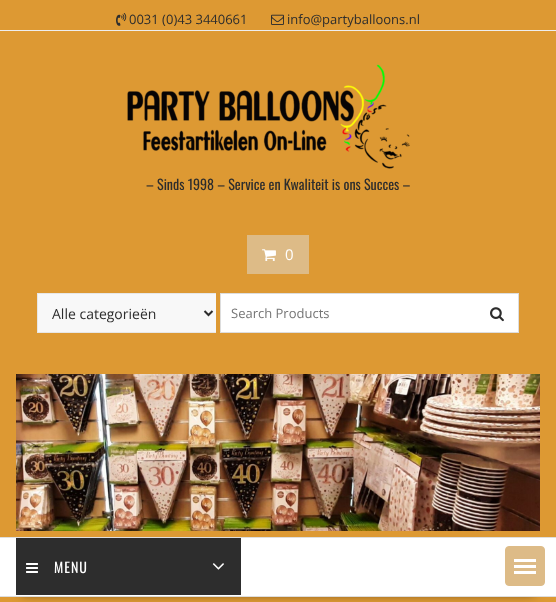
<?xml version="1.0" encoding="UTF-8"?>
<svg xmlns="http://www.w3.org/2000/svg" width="556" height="602">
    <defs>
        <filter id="blur1" x="-50%" y="-200%" width="200%" height="500%"><feGaussianBlur stdDeviation="5.5"/></filter>
    </defs>
    <rect width="100%" height="100%" fill="#DD9933"/>
    <rect x="0" y="30" width="556" height="1" fill="#EEEEEE"/>
    <image x="116" y="13" width="11" height="13" href="img_01.png"/>
    <text x="129" y="24" font-family="Open Sans" font-size="13" fill="#2D2D2D">0031 (0)43 3440661</text>
    <image x="271" y="14" width="13" height="11" href="img_02.png"/>
    <text x="287" y="24" font-family="Open Sans" font-size="13" fill="#2D2D2D">info@partyballoons.nl</text>
    <image x="127" y="64" width="283" height="105" href="img_03.png"/>
    <text x="146" y="190" font-family="Oswald" font-size="14" fill="#2D2D2D">– Sinds 1998 – Service en Kwaliteit is ons Succes –</text>
    <rect x="247" y="235" width="62" height="39" fill="#DDBB87"/>
    <image x="262" y="249" width="14" height="12" href="img_04.png"/>
    <text x="285" y="260" font-family="Open Sans" font-size="15" fill="#FFFFFF">0</text>
    <rect x="38" y="294" width="178" height="38" fill="#F8F8F8"/>
    <rect x="37" y="293" width="179" height="1" fill="#E7E7E7"/>
    <rect x="37" y="332" width="179" height="1" fill="#E7E7E7"/>
    <rect x="37" y="293" width="1" height="40" fill="#E7E7E7"/>
    <path d="M 204.5 311 L 208.5 315 L 212.5 311" fill="none" stroke="#2D2D2D" stroke-width="2"/>
    <text x="52" y="319" font-family="Open Sans" font-size="14" fill="#2D2D2D">Alle categorieën</text>
    <rect x="220.5" y="293.5" width="298" height="39" fill="#FFFFFF" stroke="#DDDDDD"/>
    <text x="231" y="318" font-family="Open Sans" font-size="13" fill="#757575">Search Products</text>
    <image x="490" y="307" width="14" height="15" href="img_05.png"/>
    <image x="16" y="374" width="524" height="157" href="img_06.png"/>
    <rect x="21" y="575" width="514" height="18" fill="#000000" fill-opacity="0.75" filter="url(#blur1)"/>
    <rect x="0" y="538" width="556" height="58" fill="#FFFFFF"/>
    <rect x="0" y="537" width="556" height="1" fill="#DEDEDE"/>
    <rect x="0" y="596" width="556" height="1" fill="#DEDEDE"/>
    <rect x="16" y="538" width="225" height="57" fill="#2D2D2D"/>
    <image x="26" y="563" width="12" height="10" href="img_07.png"/>
    <text x="54" y="573" font-family="Oswald" font-size="14" letter-spacing="1" fill="#FFFFFF">MENU</text>
    <image x="212" y="563" width="12" height="7" href="img_08.png"/>
    <rect x="505.5" y="546.5" width="39" height="39" rx="3.5" fill="#DDBB87" stroke="#DDBB87"/>
    <rect x="514" y="571" width="22" height="3" fill="#FFFFFF"/>
    <rect x="514" y="565" width="22" height="3" fill="#FFFFFF"/>
    <rect x="514" y="559" width="22" height="3" fill="#FFFFFF"/>
</svg>
